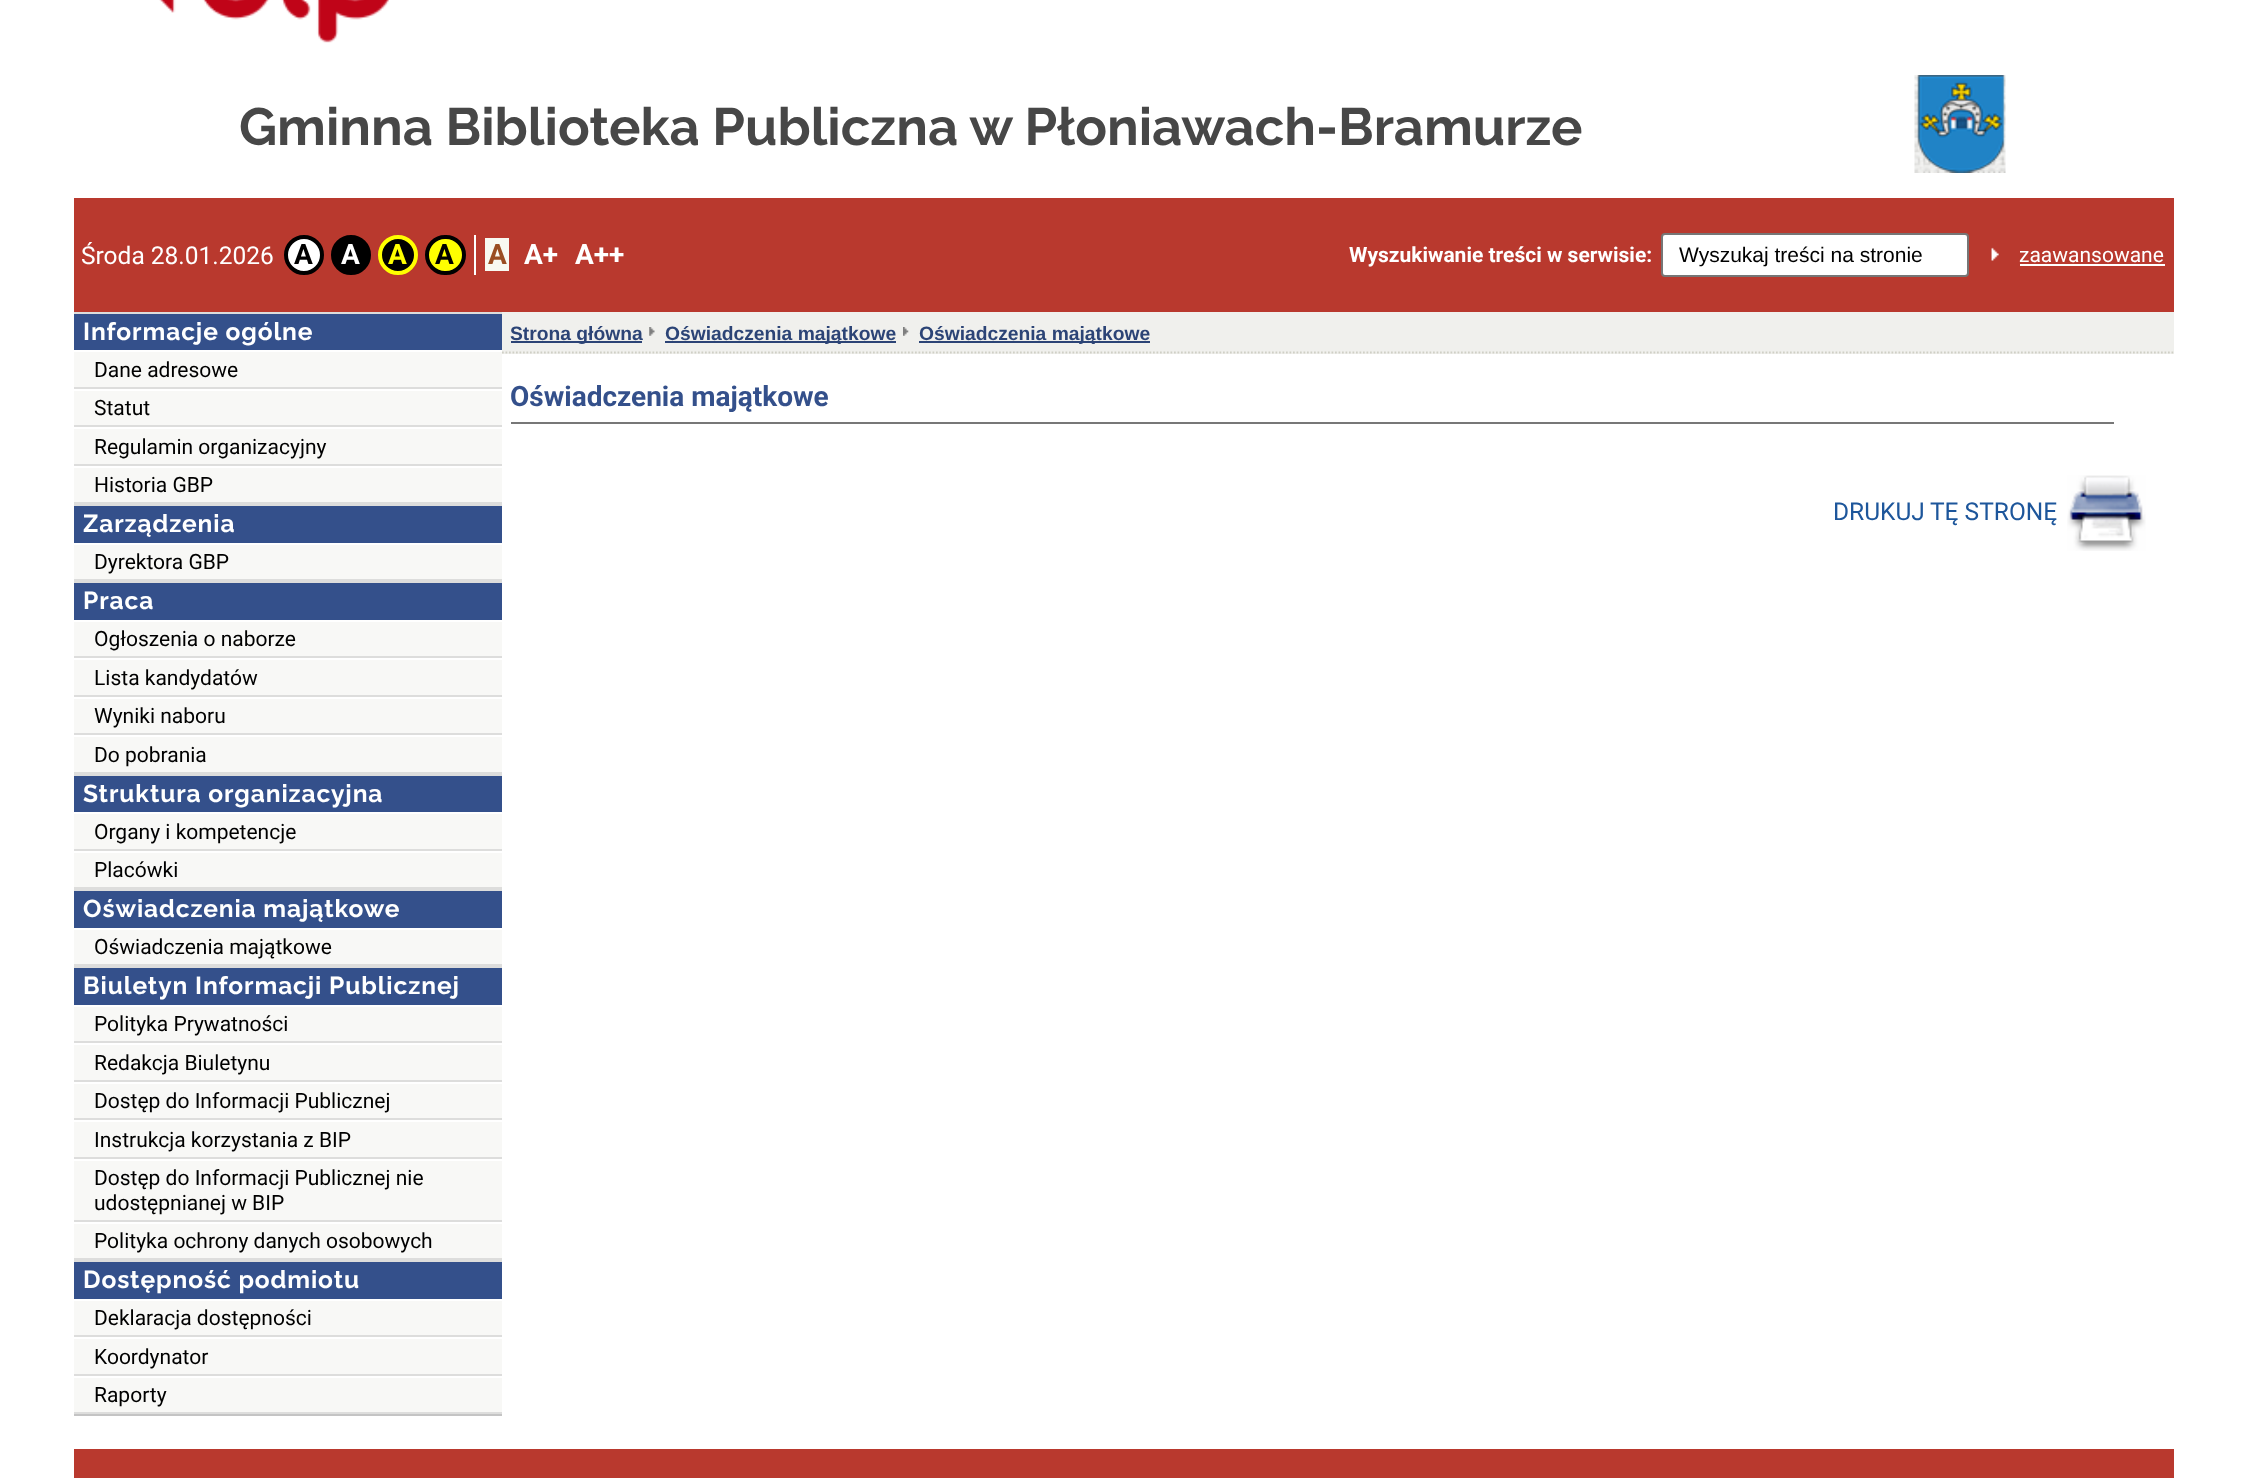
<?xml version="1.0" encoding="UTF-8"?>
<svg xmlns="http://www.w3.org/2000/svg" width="2244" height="1478">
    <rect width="100%" height="100%" fill="#FFFFFF"/>
    <image x="159" y="0" width="230" height="43" href="img_01.png"/>
    <text x="239" y="145" font-family="Raleway" font-size="52.5" font-weight="700" fill="#474747">Gminna Biblioteka Publiczna w Płoniawach-Bramurze</text>
    <image x="1914" y="75" width="92" height="98" href="img_02.png"/>
    <rect x="74" y="198" width="2100" height="114" fill="#B9392E"/>
    <text x="81" y="264" font-family="Roboto" font-size="24.5" fill="#FFFFFF">Środa 28.01.2026</text>
    <rect x="474" y="235" width="2" height="40" fill="#FFFFFF"/>
    <circle cx="304" cy="255" r="18" fill="#FFFFFF" stroke="#000000" stroke-width="4"/>
    <text x="294" y="264" font-family="Roboto" font-size="28" font-weight="700" fill="#000000">A</text>
    <circle cx="351" cy="255" r="18" fill="#000000" stroke="#000000" stroke-width="4"/>
    <text x="341" y="264" font-family="Roboto" font-size="28" font-weight="700" fill="#FFFFFF">A</text>
    <circle cx="398" cy="255" r="18" fill="#000000" stroke="#FFFF00" stroke-width="4"/>
    <text x="388" y="264" font-family="Roboto" font-size="28" font-weight="700" fill="#FFFF00">A</text>
    <rect x="427" y="237" width="37" height="36" rx="18" fill="#FFFF00" stroke="#000000" stroke-width="4"/>
    <text x="435" y="264" font-family="Roboto" font-size="28" font-weight="700" fill="#000000">A</text>
    <rect x="485" y="238" width="24" height="33" fill="#F8F9F1"/>
    <text x="488" y="264" font-family="Roboto" font-size="28" font-weight="700" fill="#9A4D22">A</text>
    <text x="524" y="264" font-family="Roboto" font-size="28" font-weight="700" fill="#FFFFFF">A+</text>
    <text x="575" y="264" font-family="Roboto" font-size="28" font-weight="700" fill="#FFFFFF">A++</text>
    <text x="1349" y="262" font-family="Roboto" font-size="21" font-weight="700" fill="#FFFFFF">Wyszukiwanie treści w serwisie:</text>
    <rect x="1662" y="234" width="306" height="42" rx="3" fill="#FFFFFF" stroke="#767676" stroke-width="2"/>
    <text x="1679" y="262" font-family="Liberation Sans" font-size="21" fill="#000000">Wyszukaj treści na stronie</text>
    <image x="1991" y="247" width="8" height="14" href="img_03.png"/>
    <text x="2019" y="262" font-family="Roboto" font-size="21" fill="#FFFFFF">zaawansowane</text>
    <rect x="2020" y="264" width="145" height="2" fill="#FFFFFF"/>
    <rect x="74" y="352" width="428" height="1060" fill="#F8F8F6"/>
    <rect x="74" y="1414" width="428" height="2" fill="#C4C4C4"/>
    <rect x="74" y="314" width="428" height="36" fill="#34508B"/>
    <rect x="74" y="312" width="428" height="2" fill="#DDDDDC"/>
    <text x="83" y="340" font-family="Raleway" font-size="24.5" font-weight="700" letter-spacing="0.9" fill="#FFFFFF">Informacje ogólne</text>
    <rect x="74" y="387" width="428" height="2" fill="#DDDDDC"/>
    <text x="94" y="377" font-family="Roboto" font-size="21" fill="#000000">Dane adresowe</text>
    <rect x="74" y="389" width="428" height="2" fill="#FFFFFF"/>
    <rect x="74" y="425" width="428" height="2" fill="#DDDDDC"/>
    <text x="94" y="415" font-family="Roboto" font-size="21" fill="#000000">Statut</text>
    <rect x="74" y="427" width="428" height="2" fill="#FFFFFF"/>
    <rect x="74" y="464" width="428" height="2" fill="#DDDDDC"/>
    <text x="94" y="454" font-family="Roboto" font-size="21" fill="#000000">Regulamin organizacyjny</text>
    <rect x="74" y="466" width="428" height="2" fill="#FFFFFF"/>
    <rect x="74" y="502" width="428" height="4" fill="#DDDDDC"/>
    <text x="94" y="492" font-family="Roboto" font-size="21" fill="#000000">Historia GBP</text>
    <rect x="74" y="506" width="428" height="37" fill="#34508B"/>
    <text x="83" y="532" font-family="Raleway" font-size="24.5" font-weight="700" letter-spacing="0.9" fill="#FFFFFF">Zarządzenia</text>
    <rect x="74" y="543" width="428" height="2" fill="#FFFFFF"/>
    <rect x="74" y="579" width="428" height="4" fill="#DDDDDC"/>
    <text x="94" y="569" font-family="Roboto" font-size="21" fill="#000000">Dyrektora GBP</text>
    <rect x="74" y="583" width="428" height="37" fill="#34508B"/>
    <text x="83" y="609" font-family="Raleway" font-size="24.5" font-weight="700" letter-spacing="0.9" fill="#FFFFFF">Praca</text>
    <rect x="74" y="620" width="428" height="2" fill="#FFFFFF"/>
    <rect x="74" y="656" width="428" height="2" fill="#DDDDDC"/>
    <text x="94" y="646" font-family="Roboto" font-size="21" fill="#000000">Ogłoszenia o naborze</text>
    <rect x="74" y="658" width="428" height="2" fill="#FFFFFF"/>
    <rect x="74" y="695" width="428" height="2" fill="#DDDDDC"/>
    <text x="94" y="685" font-family="Roboto" font-size="21" fill="#000000">Lista kandydatów</text>
    <rect x="74" y="697" width="428" height="2" fill="#FFFFFF"/>
    <rect x="74" y="733" width="428" height="2" fill="#DDDDDC"/>
    <text x="94" y="723" font-family="Roboto" font-size="21" fill="#000000">Wyniki naboru</text>
    <rect x="74" y="735" width="428" height="2" fill="#FFFFFF"/>
    <rect x="74" y="772" width="428" height="4" fill="#DDDDDC"/>
    <text x="94" y="762" font-family="Roboto" font-size="21" fill="#000000">Do pobrania</text>
    <rect x="74" y="776" width="428" height="36" fill="#34508B"/>
    <text x="83" y="802" font-family="Raleway" font-size="24.5" font-weight="700" letter-spacing="0.9" fill="#FFFFFF">Struktura organizacyjna</text>
    <rect x="74" y="812" width="428" height="2" fill="#FFFFFF"/>
    <rect x="74" y="849" width="428" height="2" fill="#DDDDDC"/>
    <text x="94" y="839" font-family="Roboto" font-size="21" fill="#000000">Organy i kompetencje</text>
    <rect x="74" y="851" width="428" height="2" fill="#FFFFFF"/>
    <rect x="74" y="887" width="428" height="4" fill="#DDDDDC"/>
    <text x="94" y="877" font-family="Roboto" font-size="21" fill="#000000">Placówki</text>
    <rect x="74" y="891" width="428" height="37" fill="#34508B"/>
    <text x="83" y="917" font-family="Raleway" font-size="24.5" font-weight="700" letter-spacing="0.9" fill="#FFFFFF">Oświadczenia majątkowe</text>
    <rect x="74" y="928" width="428" height="2" fill="#FFFFFF"/>
    <rect x="74" y="964" width="428" height="4" fill="#DDDDDC"/>
    <text x="94" y="954" font-family="Roboto" font-size="21" fill="#000000">Oświadczenia majątkowe</text>
    <rect x="74" y="968" width="428" height="37" fill="#34508B"/>
    <text x="83" y="994" font-family="Raleway" font-size="24.5" font-weight="700" letter-spacing="0.9" fill="#FFFFFF">Biuletyn Informacji Publicznej</text>
    <rect x="74" y="1005" width="428" height="2" fill="#FFFFFF"/>
    <rect x="74" y="1041" width="428" height="2" fill="#DDDDDC"/>
    <text x="94" y="1031" font-family="Roboto" font-size="21" fill="#000000">Polityka Prywatności</text>
    <rect x="74" y="1043" width="428" height="2" fill="#FFFFFF"/>
    <rect x="74" y="1080" width="428" height="2" fill="#DDDDDC"/>
    <text x="94" y="1070" font-family="Roboto" font-size="21" fill="#000000">Redakcja Biuletynu</text>
    <rect x="74" y="1082" width="428" height="2" fill="#FFFFFF"/>
    <rect x="74" y="1118" width="428" height="2" fill="#DDDDDC"/>
    <text x="94" y="1108" font-family="Roboto" font-size="21" fill="#000000">Dostęp do Informacji Publicznej</text>
    <rect x="74" y="1120" width="428" height="2" fill="#FFFFFF"/>
    <rect x="74" y="1157" width="428" height="2" fill="#DDDDDC"/>
    <text x="94" y="1147" font-family="Roboto" font-size="21" fill="#000000">Instrukcja korzystania z BIP</text>
    <rect x="74" y="1159" width="428" height="2" fill="#FFFFFF"/>
    <rect x="74" y="1220" width="428" height="2" fill="#DDDDDC"/>
    <text font-family="Roboto" font-size="21" fill="#000000">
        <tspan x="94" y="1185">Dostęp do Informacji Publicznej nie</tspan>
        <tspan x="94" y="1210">udostępnianej w BIP</tspan>
    </text>
    <rect x="74" y="1222" width="428" height="2" fill="#FFFFFF"/>
    <rect x="74" y="1258" width="428" height="4" fill="#DDDDDC"/>
    <text x="94" y="1248" font-family="Roboto" font-size="21" fill="#000000">Polityka ochrony danych osobowych</text>
    <rect x="74" y="1262" width="428" height="37" fill="#34508B"/>
    <text x="83" y="1288" font-family="Raleway" font-size="24.5" font-weight="700" letter-spacing="0.9" fill="#FFFFFF">Dostępność podmiotu</text>
    <rect x="74" y="1299" width="428" height="2" fill="#FFFFFF"/>
    <rect x="74" y="1335" width="428" height="2" fill="#DDDDDC"/>
    <text x="94" y="1325" font-family="Roboto" font-size="21" fill="#000000">Deklaracja dostępności</text>
    <rect x="74" y="1337" width="428" height="2" fill="#FFFFFF"/>
    <rect x="74" y="1374" width="428" height="2" fill="#DDDDDC"/>
    <text x="94" y="1364" font-family="Roboto" font-size="21" fill="#000000">Koordynator</text>
    <rect x="74" y="1376" width="428" height="2" fill="#FFFFFF"/>
    <rect x="74" y="1412" width="428" height="2" fill="#DDDDDC"/>
    <text x="94" y="1402" font-family="Roboto" font-size="21" fill="#000000">Raporty</text>
    <rect x="502" y="312" width="1672" height="42" fill="#F0F0ED"/>
    <path d="M 502 352.5 H 2173.5" fill="none" stroke="#CFCFC6" stroke-width="1.8" stroke-dasharray="1.75 1.75"/>
    <rect x="511" y="341" width="131" height="2" fill="#2C4476"/>
    <text x="510" y="340" font-family="Liberation Sans" font-size="19.25" font-weight="700" fill="#2C4476">Strona główna</text>
    <image x="649" y="327" width="6" height="9" href="img_04.png"/>
    <rect x="665" y="341" width="231" height="2" fill="#2C4476"/>
    <text x="665" y="340" font-family="Liberation Sans" font-size="19.25" font-weight="700" fill="#2C4476">Oświadczenia majątkowe</text>
    <image x="903" y="327" width="6" height="9" href="img_05.png"/>
    <rect x="919" y="341" width="231" height="2" fill="#2C4476"/>
    <text x="919" y="340" font-family="Liberation Sans" font-size="19.25" font-weight="700" fill="#2C4476">Oświadczenia majątkowe</text>
    <rect x="511" y="422" width="1603" height="2" fill="#777777"/>
    <text x="510" y="406" font-family="Roboto" font-size="28" font-weight="700" fill="#34508B">Oświadczenia majątkowe</text>
    <text x="1833" y="520" font-family="Roboto" font-size="24.5" fill="#1D569B">DRUKUJ</text>
    <text x="1930" y="520" font-family="Roboto" font-size="24.5" fill="#1D569B">TĘ STRONĘ</text>
    <image x="2067" y="475" width="79" height="76" href="img_06.png"/>
    <rect x="74" y="1449" width="2100" height="29" fill="#B9392E"/>
</svg>
